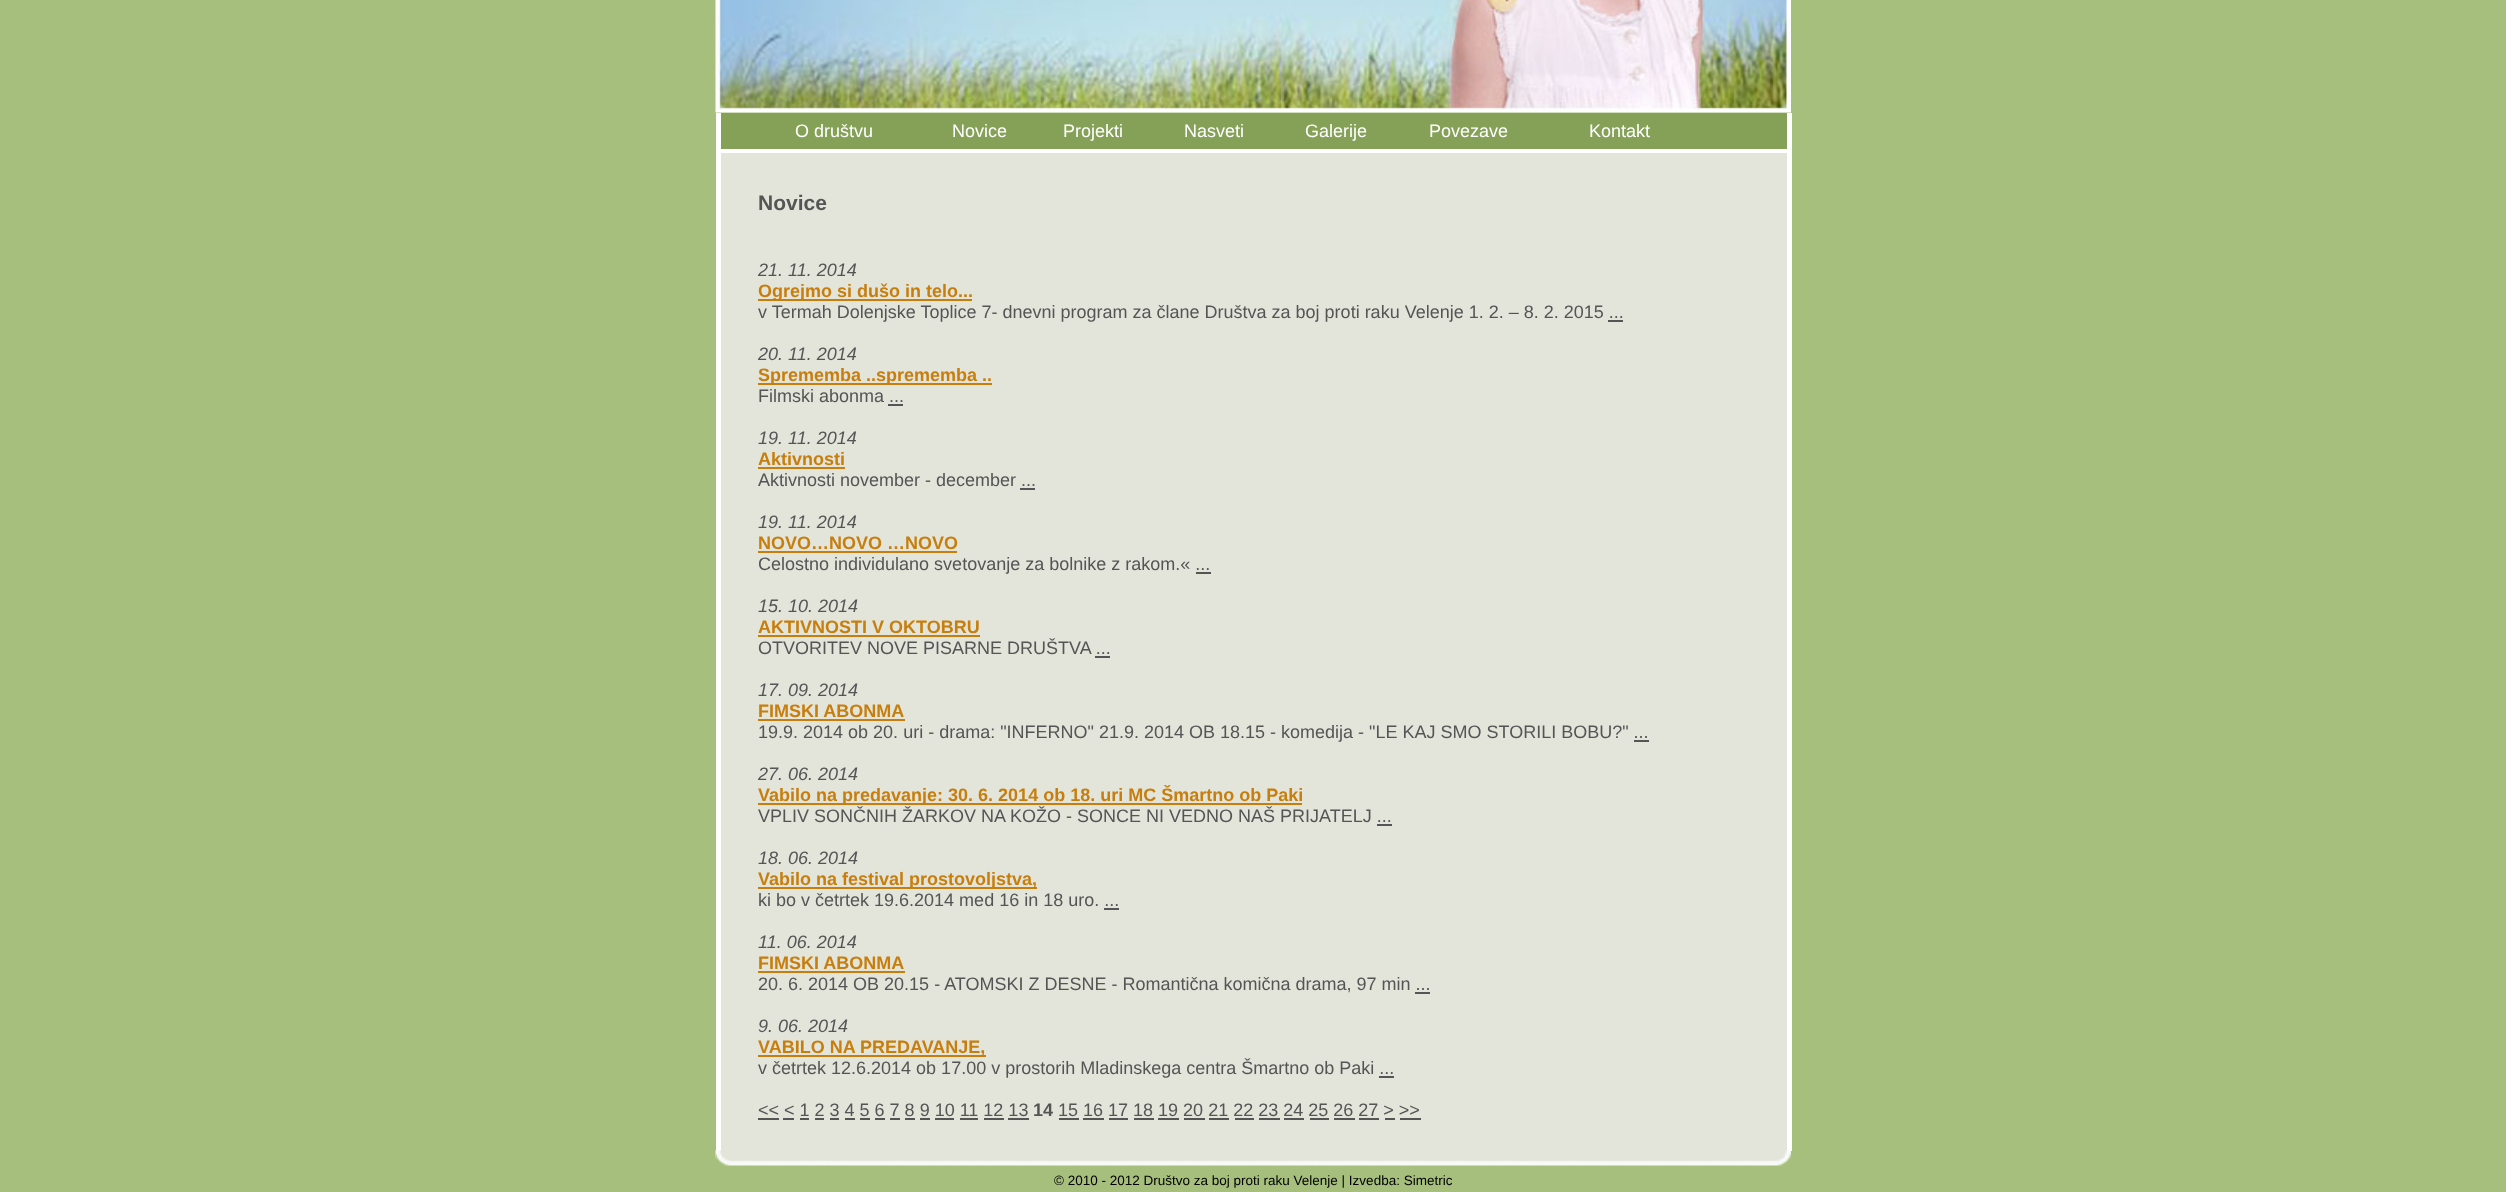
<?xml version="1.0" encoding="UTF-8"?>
<svg xmlns="http://www.w3.org/2000/svg" width="2506" height="1192">
    <rect width="100%" height="100%" fill="#A6BF7D"/>
    <image x="715" y="0" width="1076" height="113" href="img_01.png"/>
    <rect x="721" y="113" width="1066" height="36" fill="#85A157"/>
    <rect x="1787" y="113" width="5" height="1038" fill="#FFFFFF"/>
    <rect x="716" y="149" width="1075" height="4" fill="#FFFFFF"/>
    <rect x="716" y="113" width="5" height="1038" fill="#FFFFFF"/>
    <text x="795" y="137" font-family="Liberation Sans" font-size="18" fill="#FFFFFF">O društvu</text>
    <text x="952" y="137" font-family="Liberation Sans" font-size="18" fill="#FFFFFF">Novice</text>
    <text x="1063" y="137" font-family="Liberation Sans" font-size="18" fill="#FFFFFF">Projekti</text>
    <text x="1184" y="137" font-family="Liberation Sans" font-size="18" fill="#FFFFFF">Nasveti</text>
    <text x="1305" y="137" font-family="Liberation Sans" font-size="18" fill="#FFFFFF">Galerije</text>
    <text x="1429" y="137" font-family="Liberation Sans" font-size="18" fill="#FFFFFF">Povezave</text>
    <text x="1589" y="137" font-family="Liberation Sans" font-size="18" fill="#FFFFFF">Kontakt</text>
    <rect x="721" y="153" width="1066" height="998" fill="#E3E5DB"/>
    <text x="758" y="210" font-family="Liberation Sans" font-size="21" font-weight="700" fill="#555555">Novice</text>
    <text x="758" y="276" font-family="Liberation Sans" font-size="18" font-style="italic" fill="#555555">21. 11. 2014</text>
    <rect x="758" y="299" width="214" height="2" fill="#C77E0C"/>
    <text x="758" y="297" font-family="Liberation Sans" font-size="18" font-weight="700" fill="#C77E0C">Ogrejmo si dušo in telo...</text>
    <text x="758" y="318" font-family="Liberation Sans" font-size="18" fill="#555555">v Termah Dolenjske Toplice 7- dnevni program za člane Društva za boj proti raku Velenje 1. 2. – 8. 2. 2015 ...</text>
    <rect x="1608" y="320" width="15" height="2" fill="#555555"/>
    <text x="758" y="360" font-family="Liberation Sans" font-size="18" font-style="italic" fill="#555555">20. 11. 2014</text>
    <rect x="758" y="383" width="234" height="2" fill="#C77E0C"/>
    <text x="758" y="381" font-family="Liberation Sans" font-size="18" font-weight="700" fill="#C77E0C">Sprememba ..sprememba ..</text>
    <text x="758" y="402" font-family="Liberation Sans" font-size="18" fill="#555555">Filmski abonma ...</text>
    <rect x="888" y="404" width="15" height="2" fill="#555555"/>
    <text x="758" y="444" font-family="Liberation Sans" font-size="18" font-style="italic" fill="#555555">19. 11. 2014</text>
    <text x="758" y="465" font-family="Liberation Sans" font-size="18" font-weight="700" fill="#C77E0C">Aktivnosti</text>
    <rect x="758" y="467" width="87" height="2" fill="#C77E0C"/>
    <text x="758" y="486" font-family="Liberation Sans" font-size="18" fill="#555555">Aktivnosti november - december ...</text>
    <rect x="1020" y="488" width="15" height="2" fill="#555555"/>
    <text x="758" y="528" font-family="Liberation Sans" font-size="18" font-style="italic" fill="#555555">19. 11. 2014</text>
    <text x="758" y="549" font-family="Liberation Sans" font-size="18" font-weight="700" fill="#C77E0C">NOVO…NOVO …NOVO</text>
    <rect x="758" y="551" width="199" height="2" fill="#C77E0C"/>
    <text x="758" y="570" font-family="Liberation Sans" font-size="18" fill="#555555">Celostno individulano svetovanje za bolnike z rakom.« ...</text>
    <rect x="1196" y="572" width="15" height="2" fill="#555555"/>
    <text x="758" y="612" font-family="Liberation Sans" font-size="18" font-style="italic" fill="#555555">15. 10. 2014</text>
    <text x="758" y="633" font-family="Liberation Sans" font-size="18" font-weight="700" fill="#C77E0C">AKTIVNOSTI V OKTOBRU</text>
    <rect x="758" y="635" width="222" height="2" fill="#C77E0C"/>
    <text x="758" y="654" font-family="Liberation Sans" font-size="18" fill="#555555">OTVORITEV NOVE PISARNE DRUŠTVA ...</text>
    <rect x="1095" y="656" width="15" height="2" fill="#555555"/>
    <text x="758" y="696" font-family="Liberation Sans" font-size="18" font-style="italic" fill="#555555">17. 09. 2014</text>
    <text x="758" y="717" font-family="Liberation Sans" font-size="18" font-weight="700" fill="#C77E0C">FIMSKI ABONMA</text>
    <rect x="758" y="719" width="147" height="2" fill="#C77E0C"/>
    <text x="758" y="738" font-family="Liberation Sans" font-size="18" fill="#555555">19.9. 2014 ob 20. uri - drama: "INFERNO" 21.9. 2014 OB 18.15 - komedija - "LE KAJ SMO STORILI BOBU?" ...</text>
    <rect x="1634" y="740" width="15" height="2" fill="#555555"/>
    <text x="758" y="780" font-family="Liberation Sans" font-size="18" font-style="italic" fill="#555555">27. 06. 2014</text>
    <rect x="758" y="803" width="544" height="2" fill="#C77E0C"/>
    <text x="758" y="801" font-family="Liberation Sans" font-size="18" font-weight="700" fill="#C77E0C">Vabilo na predavanje: 30. 6. 2014 ob 18. uri MC Šmartno ob Paki</text>
    <text x="758" y="822" font-family="Liberation Sans" font-size="18" fill="#555555">VPLIV SONČNIH ŽARKOV NA KOŽO - SONCE NI VEDNO NAŠ PRIJATELJ ...</text>
    <rect x="1377" y="824" width="15" height="2" fill="#555555"/>
    <text x="758" y="864" font-family="Liberation Sans" font-size="18" font-style="italic" fill="#555555">18. 06. 2014</text>
    <rect x="758" y="887" width="279" height="2" fill="#C77E0C"/>
    <text x="758" y="885" font-family="Liberation Sans" font-size="18" font-weight="700" fill="#C77E0C">Vabilo na festival prostovoljstva,</text>
    <text x="758" y="906" font-family="Liberation Sans" font-size="18" fill="#555555">ki bo v četrtek 19.6.2014 med 16 in 18 uro. ...</text>
    <rect x="1104" y="908" width="15" height="2" fill="#555555"/>
    <text x="758" y="948" font-family="Liberation Sans" font-size="18" font-style="italic" fill="#555555">11. 06. 2014</text>
    <text x="758" y="969" font-family="Liberation Sans" font-size="18" font-weight="700" fill="#C77E0C">FIMSKI ABONMA</text>
    <rect x="758" y="971" width="147" height="2" fill="#C77E0C"/>
    <text x="758" y="990" font-family="Liberation Sans" font-size="18" fill="#555555">20. 6. 2014 OB 20.15 - ATOMSKI Z DESNE - Romantična komična drama, 97 min ...</text>
    <rect x="1415" y="992" width="15" height="2" fill="#555555"/>
    <text x="758" y="1032" font-family="Liberation Sans" font-size="18" font-style="italic" fill="#555555">9. 06. 2014</text>
    <rect x="758" y="1055" width="228" height="2" fill="#C77E0C"/>
    <text x="758" y="1053" font-family="Liberation Sans" font-size="18" font-weight="700" fill="#C77E0C">VABILO NA PREDAVANJE,</text>
    <text x="758" y="1074" font-family="Liberation Sans" font-size="18" fill="#555555">v četrtek 12.6.2014 ob 17.00 v prostorih Mladinskega centra Šmartno ob Paki ...</text>
    <rect x="1379" y="1076" width="15" height="2" fill="#555555"/>
    <text x="758" y="1116" font-family="Liberation Sans" font-size="18" fill="#555555">&lt;&lt; &lt; 1 2 3 4 5 6 7 8 9 10 11 12 13</text>
    <rect x="758" y="1118" width="21" height="2" fill="#555555"/>
    <text x="1033" y="1116" font-family="Liberation Sans" font-size="18" font-weight="700" fill="#555555">14</text>
    <text x="1058" y="1116" font-family="Liberation Sans" font-size="18" fill="#555555">15 16 17 18 19 20 21 22 23 24 25 26 27 &gt; &gt;&gt;</text>
    <rect x="1059" y="1118" width="20" height="2" fill="#555555"/>
    <rect x="783" y="1118" width="11" height="2" fill="#555555"/>
    <rect x="800" y="1118" width="9" height="2" fill="#555555"/>
    <rect x="815" y="1118" width="9" height="2" fill="#555555"/>
    <rect x="830" y="1118" width="9" height="2" fill="#555555"/>
    <rect x="845" y="1118" width="10" height="2" fill="#555555"/>
    <rect x="860" y="1118" width="10" height="2" fill="#555555"/>
    <rect x="875" y="1118" width="10" height="2" fill="#555555"/>
    <rect x="890" y="1118" width="10" height="2" fill="#555555"/>
    <rect x="905" y="1118" width="10" height="2" fill="#555555"/>
    <rect x="920" y="1118" width="10" height="2" fill="#555555"/>
    <rect x="935" y="1118" width="19" height="2" fill="#555555"/>
    <rect x="960" y="1118" width="18" height="2" fill="#555555"/>
    <rect x="984" y="1118" width="20" height="2" fill="#555555"/>
    <rect x="1008" y="1118" width="21" height="2" fill="#555555"/>
    <rect x="1083" y="1118" width="21" height="2" fill="#555555"/>
    <rect x="1109" y="1118" width="19" height="2" fill="#555555"/>
    <rect x="1134" y="1118" width="20" height="2" fill="#555555"/>
    <rect x="1158" y="1118" width="21" height="2" fill="#555555"/>
    <rect x="1184" y="1118" width="21" height="2" fill="#555555"/>
    <rect x="1209" y="1118" width="20" height="2" fill="#555555"/>
    <rect x="1235" y="1118" width="19" height="2" fill="#555555"/>
    <rect x="1259" y="1118" width="21" height="2" fill="#555555"/>
    <rect x="1284" y="1118" width="20" height="2" fill="#555555"/>
    <rect x="1310" y="1118" width="19" height="2" fill="#555555"/>
    <rect x="1334" y="1118" width="21" height="2" fill="#555555"/>
    <rect x="1359" y="1118" width="20" height="2" fill="#555555"/>
    <rect x="1385" y="1118" width="10" height="2" fill="#555555"/>
    <rect x="1400" y="1118" width="21" height="2" fill="#555555"/>
    <image x="715" y="1150" width="1076" height="16" href="img_02.png"/>
    <text x="1054" y="1185" font-family="Liberation Sans" font-size="13.5" fill="#000000">© 2010 - 2012 Društvo za boj proti raku Velenje | Izvedba: Simetric</text>
</svg>
